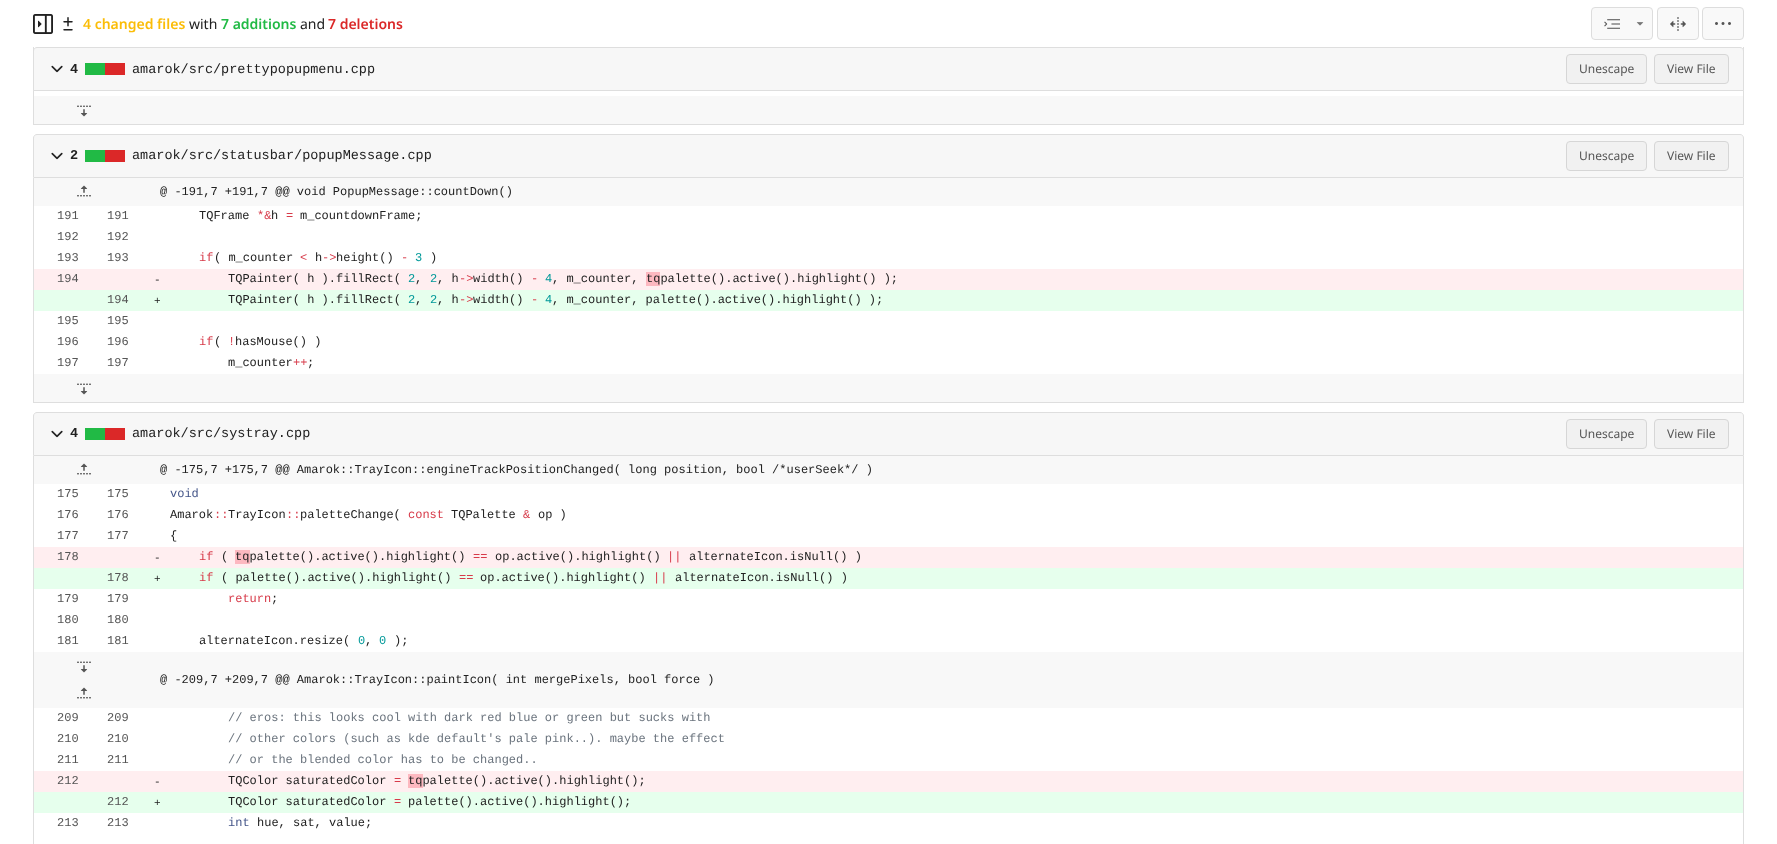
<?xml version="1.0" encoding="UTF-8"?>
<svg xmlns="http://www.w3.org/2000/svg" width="1777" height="844">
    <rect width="100%" height="100%" fill="#FFFFFF"/>
    <image x="33" y="14" width="20" height="20" href="img_01.png"/>
    <image x="63" y="17" width="10" height="14" href="img_02.png"/>
    <text x="83" y="29" font-family="Noto Sans" font-size="14" font-weight="600" fill="#FBBD08">4 changed files</text>
    <text x="189" y="29" font-family="Noto Sans" font-size="14" fill="#212121">with</text>
    <text x="221" y="29" font-family="Noto Sans" font-size="14" font-weight="600" fill="#21BA45">7 additions</text>
    <text x="300" y="29" font-family="Noto Sans" font-size="14" fill="#212121">and</text>
    <text x="328" y="29" font-family="Noto Sans" font-size="14" font-weight="600" fill="#DB2828">7 deletions</text>
    <rect x="1591.5" y="7.5" width="61" height="32" rx="3.5" fill="#F9F9F9" stroke="#DDDDDD"/>
    <image x="1604" y="19" width="16" height="10" href="img_03.png"/>
    <image x="1636" y="22" width="8" height="4" href="img_04.png"/>
    <rect x="1657.5" y="7.5" width="41" height="32" rx="3.5" fill="#F9F9F9" stroke="#DDDDDD"/>
    <image x="1670" y="17" width="16" height="14" href="img_05.png"/>
    <rect x="1702.5" y="7.5" width="41" height="32" rx="3.5" fill="#F9F9F9" stroke="#DDDDDD"/>
    <image x="1715" y="22" width="16" height="3" href="img_06.png"/>
    <rect x="1743" y="47" width="1" height="78" fill="#DEDEDE"/>
    <rect x="33" y="124" width="1711" height="1" fill="#DEDEDE"/>
    <rect x="33" y="47" width="1" height="78" fill="#DEDEDE"/>
    <rect x="34" y="96" width="1709" height="28" fill="#F8F8F8"/>
    <image x="77" y="105" width="14" height="12" href="img_07.png"/>
    <path d="M 37 47.5 H 1740 C 1742 47.5 1743.5 49 1743.5 51 V 90.5 H 33.5 V 51 C 33.5 49 35 47.5 37 47.5 Z" fill="#F7F7F7" stroke="#DEDEDE"/>
    <image x="51" y="65" width="12" height="8" href="img_08.png"/>
    <text x="70" y="73" font-family="Liberation Mono" font-size="13.5" font-weight="700" fill="#212121">4</text>
    <rect x="105" y="63" width="20" height="12" fill="#DB2828"/>
    <rect x="85" y="63" width="20" height="12" fill="#21BA45"/>
    <text x="132" y="73" font-family="Liberation Mono" font-size="13.5" fill="#212121">amarok/src/prettypopupmenu.cpp</text>
    <rect x="1566.5" y="54.5" width="80" height="29" rx="3.5" fill="#F1F1F1" stroke="#D6D6D6"/>
    <text x="1579" y="73" font-family="Noto Sans" font-size="12" fill="#555555">Unescape</text>
    <rect x="1654.5" y="54.5" width="74" height="29" rx="3.5" fill="#F1F1F1" stroke="#D6D6D6"/>
    <text x="1667" y="73" font-family="Noto Sans" font-size="12" fill="#555555">View File</text>
    <path d="M 37 134.5 H 1740 C 1742 134.5 1743.5 136 1743.5 138 V 177.5 H 33.5 V 138 C 33.5 136 35 134.5 37 134.5 Z" fill="#F7F7F7" stroke="#DEDEDE"/>
    <image x="51" y="152" width="12" height="8" href="img_08.png"/>
    <text x="70" y="159" font-family="Liberation Mono" font-size="13.5" font-weight="700" fill="#212121">2</text>
    <rect x="105" y="150" width="20" height="12" fill="#DB2828"/>
    <rect x="85" y="150" width="20" height="12" fill="#21BA45"/>
    <text x="132" y="159" font-family="Liberation Mono" font-size="13.5" fill="#212121">amarok/src/statusbar/popupMessage.cpp</text>
    <rect x="1566.5" y="141.5" width="80" height="29" rx="3.5" fill="#F1F1F1" stroke="#D6D6D6"/>
    <text x="1579" y="160" font-family="Noto Sans" font-size="12" fill="#555555">Unescape</text>
    <rect x="1654.5" y="141.5" width="74" height="29" rx="3.5" fill="#F1F1F1" stroke="#D6D6D6"/>
    <text x="1667" y="160" font-family="Noto Sans" font-size="12" fill="#555555">View File</text>
    <rect x="1743" y="178" width="1" height="225" fill="#DEDEDE"/>
    <rect x="33" y="402" width="1711" height="1" fill="#DEDEDE"/>
    <rect x="33" y="178" width="1" height="225" fill="#DEDEDE"/>
    <rect x="34" y="178" width="1709" height="28" fill="#F8F8F8"/>
    <image x="77" y="185" width="14" height="12" href="img_09.png"/>
    <text x="160" y="195" font-family="Liberation Mono" font-size="12" fill="#212121">@ -191,7 +191,7 @@ void PopupMessage::countDown()</text>
    <text x="57" y="219" font-family="Liberation Mono" font-size="12" fill="#555555">191</text>
    <text x="107" y="219" font-family="Liberation Mono" font-size="12" fill="#555555">191</text>
    <text x="199" y="219" font-family="Liberation Mono" font-size="12" fill="#212121">TQFrame</text>
    <text x="257" y="219" font-family="Liberation Mono" font-size="12" fill="#D73A49">*&amp;</text>
    <text x="271" y="219" font-family="Liberation Mono" font-size="12" fill="#212121">h</text>
    <text x="286" y="219" font-family="Liberation Mono" font-size="12" fill="#D73A49">=</text>
    <text x="300" y="219" font-family="Liberation Mono" font-size="12" fill="#212121">m_countdownFrame;</text>
    <text x="57" y="240" font-family="Liberation Mono" font-size="12" fill="#555555">192</text>
    <text x="107" y="240" font-family="Liberation Mono" font-size="12" fill="#555555">192</text>
    <text x="57" y="261" font-family="Liberation Mono" font-size="12" fill="#555555">193</text>
    <text x="107" y="261" font-family="Liberation Mono" font-size="12" fill="#555555">193</text>
    <text x="199" y="261" font-family="Liberation Mono" font-size="12" fill="#D73A49">if</text>
    <text x="214" y="261" font-family="Liberation Mono" font-size="12" fill="#212121">( m_counter</text>
    <text x="300" y="261" font-family="Liberation Mono" font-size="12" fill="#D73A49">&lt;</text>
    <text x="315" y="261" font-family="Liberation Mono" font-size="12" fill="#212121">h</text>
    <text x="322" y="261" font-family="Liberation Mono" font-size="12" fill="#D73A49">-&gt;</text>
    <text x="336" y="261" font-family="Liberation Mono" font-size="12" fill="#212121">height()</text>
    <text x="401" y="261" font-family="Liberation Mono" font-size="12" fill="#D73A49">-</text>
    <text x="415" y="261" font-family="Liberation Mono" font-size="12" fill="#009999">3</text>
    <text x="430" y="261" font-family="Liberation Mono" font-size="12" fill="#212121">)</text>
    <rect x="34" y="269" width="1709" height="21" fill="#FFEEF0"/>
    <text x="57" y="282" font-family="Liberation Mono" font-size="12" fill="#555555">194</text>
    <text x="154" y="283" font-family="Liberation Mono" font-size="11" fill="#212121">-</text>
    <text x="228" y="282" font-family="Liberation Mono" font-size="12" fill="#212121">TQPainter( h ).fillRect(</text>
    <text x="408" y="282" font-family="Liberation Mono" font-size="12" fill="#009999">2</text>
    <text x="430" y="282" font-family="Liberation Mono" font-size="12" fill="#009999">2</text>
    <text x="437" y="282" font-family="Liberation Mono" font-size="12" fill="#212121">, h</text>
    <text x="459" y="282" font-family="Liberation Mono" font-size="12" fill="#D73A49">-&gt;</text>
    <text x="473" y="282" font-family="Liberation Mono" font-size="12" fill="#212121">width()</text>
    <text x="531" y="282" font-family="Liberation Mono" font-size="12" fill="#D73A49">-</text>
    <text x="545" y="282" font-family="Liberation Mono" font-size="12" fill="#009999">4</text>
    <text x="552" y="282" font-family="Liberation Mono" font-size="12" fill="#212121">, m_counter,</text>
    <rect x="646" y="272" width="14" height="14" fill="#FDB8C0"/>
    <text x="646" y="282" font-family="Liberation Mono" font-size="12" fill="#212121">tqpalette().active().highlight() );</text>
    <text x="415" y="282" font-family="Liberation Mono" font-size="12" fill="#212121">,</text>
    <rect x="34" y="290" width="1709" height="21" fill="#E6FFED"/>
    <text x="107" y="303" font-family="Liberation Mono" font-size="12" fill="#555555">194</text>
    <text x="154" y="304" font-family="Liberation Mono" font-size="11" fill="#212121">+</text>
    <text x="228" y="303" font-family="Liberation Mono" font-size="12" fill="#212121">TQPainter( h ).fillRect(</text>
    <text x="408" y="303" font-family="Liberation Mono" font-size="12" fill="#009999">2</text>
    <text x="430" y="303" font-family="Liberation Mono" font-size="12" fill="#009999">2</text>
    <text x="437" y="303" font-family="Liberation Mono" font-size="12" fill="#212121">, h</text>
    <text x="459" y="303" font-family="Liberation Mono" font-size="12" fill="#D73A49">-&gt;</text>
    <text x="473" y="303" font-family="Liberation Mono" font-size="12" fill="#212121">width()</text>
    <text x="531" y="303" font-family="Liberation Mono" font-size="12" fill="#D73A49">-</text>
    <text x="545" y="303" font-family="Liberation Mono" font-size="12" fill="#009999">4</text>
    <text x="552" y="303" font-family="Liberation Mono" font-size="12" fill="#212121">, m_counter, palette().active().highlight() );</text>
    <text x="415" y="303" font-family="Liberation Mono" font-size="12" fill="#212121">,</text>
    <text x="57" y="324" font-family="Liberation Mono" font-size="12" fill="#555555">195</text>
    <text x="107" y="324" font-family="Liberation Mono" font-size="12" fill="#555555">195</text>
    <text x="57" y="345" font-family="Liberation Mono" font-size="12" fill="#555555">196</text>
    <text x="107" y="345" font-family="Liberation Mono" font-size="12" fill="#555555">196</text>
    <text x="199" y="345" font-family="Liberation Mono" font-size="12" fill="#D73A49">if</text>
    <text x="214" y="345" font-family="Liberation Mono" font-size="12" fill="#212121">(</text>
    <text x="228" y="345" font-family="Liberation Mono" font-size="12" fill="#D73A49">!</text>
    <text x="235" y="345" font-family="Liberation Mono" font-size="12" fill="#212121">hasMouse() )</text>
    <text x="57" y="366" font-family="Liberation Mono" font-size="12" fill="#555555">197</text>
    <text x="107" y="366" font-family="Liberation Mono" font-size="12" fill="#555555">197</text>
    <text x="228" y="366" font-family="Liberation Mono" font-size="12" fill="#212121">m_counter</text>
    <text x="293" y="366" font-family="Liberation Mono" font-size="12" fill="#D73A49">++</text>
    <text x="307" y="366" font-family="Liberation Mono" font-size="12" fill="#212121">;</text>
    <rect x="34" y="374" width="1709" height="28" fill="#F8F8F8"/>
    <image x="77" y="383" width="14" height="12" href="img_07.png"/>
    <path d="M 37 412.5 H 1740 C 1742 412.5 1743.5 414 1743.5 416 V 455.5 H 33.5 V 416 C 33.5 414 35 412.5 37 412.5 Z" fill="#F7F7F7" stroke="#DEDEDE"/>
    <image x="51" y="430" width="12" height="8" href="img_08.png"/>
    <text x="70" y="437" font-family="Liberation Mono" font-size="13.5" font-weight="700" fill="#212121">4</text>
    <rect x="105" y="428" width="20" height="12" fill="#DB2828"/>
    <rect x="85" y="428" width="20" height="12" fill="#21BA45"/>
    <text x="132" y="437" font-family="Liberation Mono" font-size="13.5" fill="#212121">amarok/src/systray.cpp</text>
    <rect x="1566.5" y="419.5" width="80" height="29" rx="3.5" fill="#F1F1F1" stroke="#D6D6D6"/>
    <text x="1579" y="438" font-family="Noto Sans" font-size="12" fill="#555555">Unescape</text>
    <rect x="1654.5" y="419.5" width="74" height="29" rx="3.5" fill="#F1F1F1" stroke="#D6D6D6"/>
    <text x="1667" y="438" font-family="Noto Sans" font-size="12" fill="#555555">View File</text>
    <rect x="1743" y="456" width="1" height="388" fill="#DEDEDE"/>
    <rect x="33" y="456" width="1" height="388" fill="#DEDEDE"/>
    <rect x="34" y="456" width="1709" height="28" fill="#F8F8F8"/>
    <image x="77" y="463" width="14" height="12" href="img_09.png"/>
    <text x="160" y="473" font-family="Liberation Mono" font-size="12" fill="#212121">@ -175,7 +175,7 @@ Amarok::TrayIcon::engineTrackPositionChanged( long position, bool /*userSeek*/ )</text>
    <text x="57" y="497" font-family="Liberation Mono" font-size="12" fill="#555555">175</text>
    <text x="107" y="497" font-family="Liberation Mono" font-size="12" fill="#555555">175</text>
    <text x="170" y="497" font-family="Liberation Mono" font-size="12" fill="#445588">void</text>
    <text x="57" y="518" font-family="Liberation Mono" font-size="12" fill="#555555">176</text>
    <text x="107" y="518" font-family="Liberation Mono" font-size="12" fill="#555555">176</text>
    <text x="170" y="518" font-family="Liberation Mono" font-size="12" fill="#212121">Amarok</text>
    <text x="214" y="518" font-family="Liberation Mono" font-size="12" fill="#D73A49">::</text>
    <text x="228" y="518" font-family="Liberation Mono" font-size="12" fill="#212121">TrayIcon</text>
    <text x="286" y="518" font-family="Liberation Mono" font-size="12" fill="#D73A49">::</text>
    <text x="300" y="518" font-family="Liberation Mono" font-size="12" fill="#212121">paletteChange(</text>
    <text x="408" y="518" font-family="Liberation Mono" font-size="12" fill="#D73A49">const</text>
    <text x="451" y="518" font-family="Liberation Mono" font-size="12" fill="#212121">TQPalette</text>
    <text x="523" y="518" font-family="Liberation Mono" font-size="12" fill="#D73A49">&amp;</text>
    <text x="538" y="518" font-family="Liberation Mono" font-size="12" fill="#212121">op )</text>
    <text x="57" y="539" font-family="Liberation Mono" font-size="12" fill="#555555">177</text>
    <text x="107" y="539" font-family="Liberation Mono" font-size="12" fill="#555555">177</text>
    <text x="170" y="539" font-family="Liberation Mono" font-size="12" fill="#212121">{</text>
    <rect x="34" y="547" width="1709" height="21" fill="#FFEEF0"/>
    <text x="57" y="560" font-family="Liberation Mono" font-size="12" fill="#555555">178</text>
    <text x="154" y="561" font-family="Liberation Mono" font-size="11" fill="#212121">-</text>
    <text x="199" y="560" font-family="Liberation Mono" font-size="12" fill="#D73A49">if</text>
    <text x="221" y="560" font-family="Liberation Mono" font-size="12" fill="#212121">(</text>
    <rect x="235" y="550" width="15" height="14" fill="#FDB8C0"/>
    <text x="235" y="560" font-family="Liberation Mono" font-size="12" fill="#212121">tqpalette().active().highlight()</text>
    <text x="473" y="560" font-family="Liberation Mono" font-size="12" fill="#D73A49">==</text>
    <text x="495" y="560" font-family="Liberation Mono" font-size="12" fill="#212121">op.active().highlight()</text>
    <text x="667" y="560" font-family="Liberation Mono" font-size="12" fill="#D73A49">||</text>
    <text x="689" y="560" font-family="Liberation Mono" font-size="12" fill="#212121">alternateIcon.isNull() )</text>
    <rect x="34" y="568" width="1709" height="21" fill="#E6FFED"/>
    <text x="107" y="581" font-family="Liberation Mono" font-size="12" fill="#555555">178</text>
    <text x="154" y="582" font-family="Liberation Mono" font-size="11" fill="#212121">+</text>
    <text x="199" y="581" font-family="Liberation Mono" font-size="12" fill="#D73A49">if</text>
    <text x="221" y="581" font-family="Liberation Mono" font-size="12" fill="#212121">( palette().active().highlight()</text>
    <text x="459" y="581" font-family="Liberation Mono" font-size="12" fill="#D73A49">==</text>
    <text x="480" y="581" font-family="Liberation Mono" font-size="12" fill="#212121">op.active().highlight()</text>
    <text x="653" y="581" font-family="Liberation Mono" font-size="12" fill="#D73A49">||</text>
    <text x="675" y="581" font-family="Liberation Mono" font-size="12" fill="#212121">alternateIcon.isNull() )</text>
    <text x="57" y="602" font-family="Liberation Mono" font-size="12" fill="#555555">179</text>
    <text x="107" y="602" font-family="Liberation Mono" font-size="12" fill="#555555">179</text>
    <text x="228" y="602" font-family="Liberation Mono" font-size="12" fill="#D73A49">return</text>
    <text x="271" y="602" font-family="Liberation Mono" font-size="12" fill="#212121">;</text>
    <text x="57" y="623" font-family="Liberation Mono" font-size="12" fill="#555555">180</text>
    <text x="107" y="623" font-family="Liberation Mono" font-size="12" fill="#555555">180</text>
    <text x="57" y="644" font-family="Liberation Mono" font-size="12" fill="#555555">181</text>
    <text x="107" y="644" font-family="Liberation Mono" font-size="12" fill="#555555">181</text>
    <text x="199" y="644" font-family="Liberation Mono" font-size="12" fill="#212121">alternateIcon.resize(</text>
    <text x="358" y="644" font-family="Liberation Mono" font-size="12" fill="#009999">0</text>
    <text x="365" y="644" font-family="Liberation Mono" font-size="12" fill="#212121">,</text>
    <text x="379" y="644" font-family="Liberation Mono" font-size="12" fill="#009999">0</text>
    <text x="394" y="644" font-family="Liberation Mono" font-size="12" fill="#212121">);</text>
    <rect x="34" y="652" width="1709" height="56" fill="#F8F8F8"/>
    <image x="77" y="661" width="14" height="12" href="img_07.png"/>
    <image x="77" y="687" width="14" height="12" href="img_09.png"/>
    <text x="160" y="683" font-family="Liberation Mono" font-size="12" fill="#212121">@ -209,7 +209,7 @@ Amarok::TrayIcon::paintIcon( int mergePixels, bool force )</text>
    <text x="57" y="721" font-family="Liberation Mono" font-size="12" fill="#555555">209</text>
    <text x="107" y="721" font-family="Liberation Mono" font-size="12" fill="#555555">209</text>
    <text x="228" y="721" font-family="Liberation Mono" font-size="12" fill="#6A737D">// eros: this looks cool with dark red blue or green but sucks with</text>
    <text x="57" y="742" font-family="Liberation Mono" font-size="12" fill="#555555">210</text>
    <text x="107" y="742" font-family="Liberation Mono" font-size="12" fill="#555555">210</text>
    <text x="228" y="742" font-family="Liberation Mono" font-size="12" fill="#6A737D">// other colors (such as kde default's pale pink..). maybe the effect</text>
    <text x="57" y="763" font-family="Liberation Mono" font-size="12" fill="#555555">211</text>
    <text x="107" y="763" font-family="Liberation Mono" font-size="12" fill="#555555">211</text>
    <text x="228" y="763" font-family="Liberation Mono" font-size="12" fill="#6A737D">// or the blended color has to be changed..</text>
    <rect x="34" y="771" width="1709" height="21" fill="#FFEEF0"/>
    <text x="57" y="784" font-family="Liberation Mono" font-size="12" fill="#555555">212</text>
    <text x="154" y="785" font-family="Liberation Mono" font-size="11" fill="#212121">-</text>
    <text x="228" y="784" font-family="Liberation Mono" font-size="12" fill="#212121">TQColor saturatedColor</text>
    <text x="394" y="784" font-family="Liberation Mono" font-size="12" fill="#D73A49">=</text>
    <rect x="408" y="774" width="15" height="14" fill="#FDB8C0"/>
    <text x="408" y="784" font-family="Liberation Mono" font-size="12" fill="#212121">tqpalette().active().highlight();</text>
    <rect x="34" y="792" width="1709" height="21" fill="#E6FFED"/>
    <text x="107" y="805" font-family="Liberation Mono" font-size="12" fill="#555555">212</text>
    <text x="154" y="806" font-family="Liberation Mono" font-size="11" fill="#212121">+</text>
    <text x="228" y="805" font-family="Liberation Mono" font-size="12" fill="#212121">TQColor saturatedColor</text>
    <text x="394" y="805" font-family="Liberation Mono" font-size="12" fill="#D73A49">=</text>
    <text x="408" y="805" font-family="Liberation Mono" font-size="12" fill="#212121">palette().active().highlight();</text>
    <text x="57" y="826" font-family="Liberation Mono" font-size="12" fill="#555555">213</text>
    <text x="107" y="826" font-family="Liberation Mono" font-size="12" fill="#555555">213</text>
    <text x="228" y="826" font-family="Liberation Mono" font-size="12" fill="#445588">int</text>
    <text x="257" y="826" font-family="Liberation Mono" font-size="12" fill="#212121">hue, sat, value;</text>
</svg>
